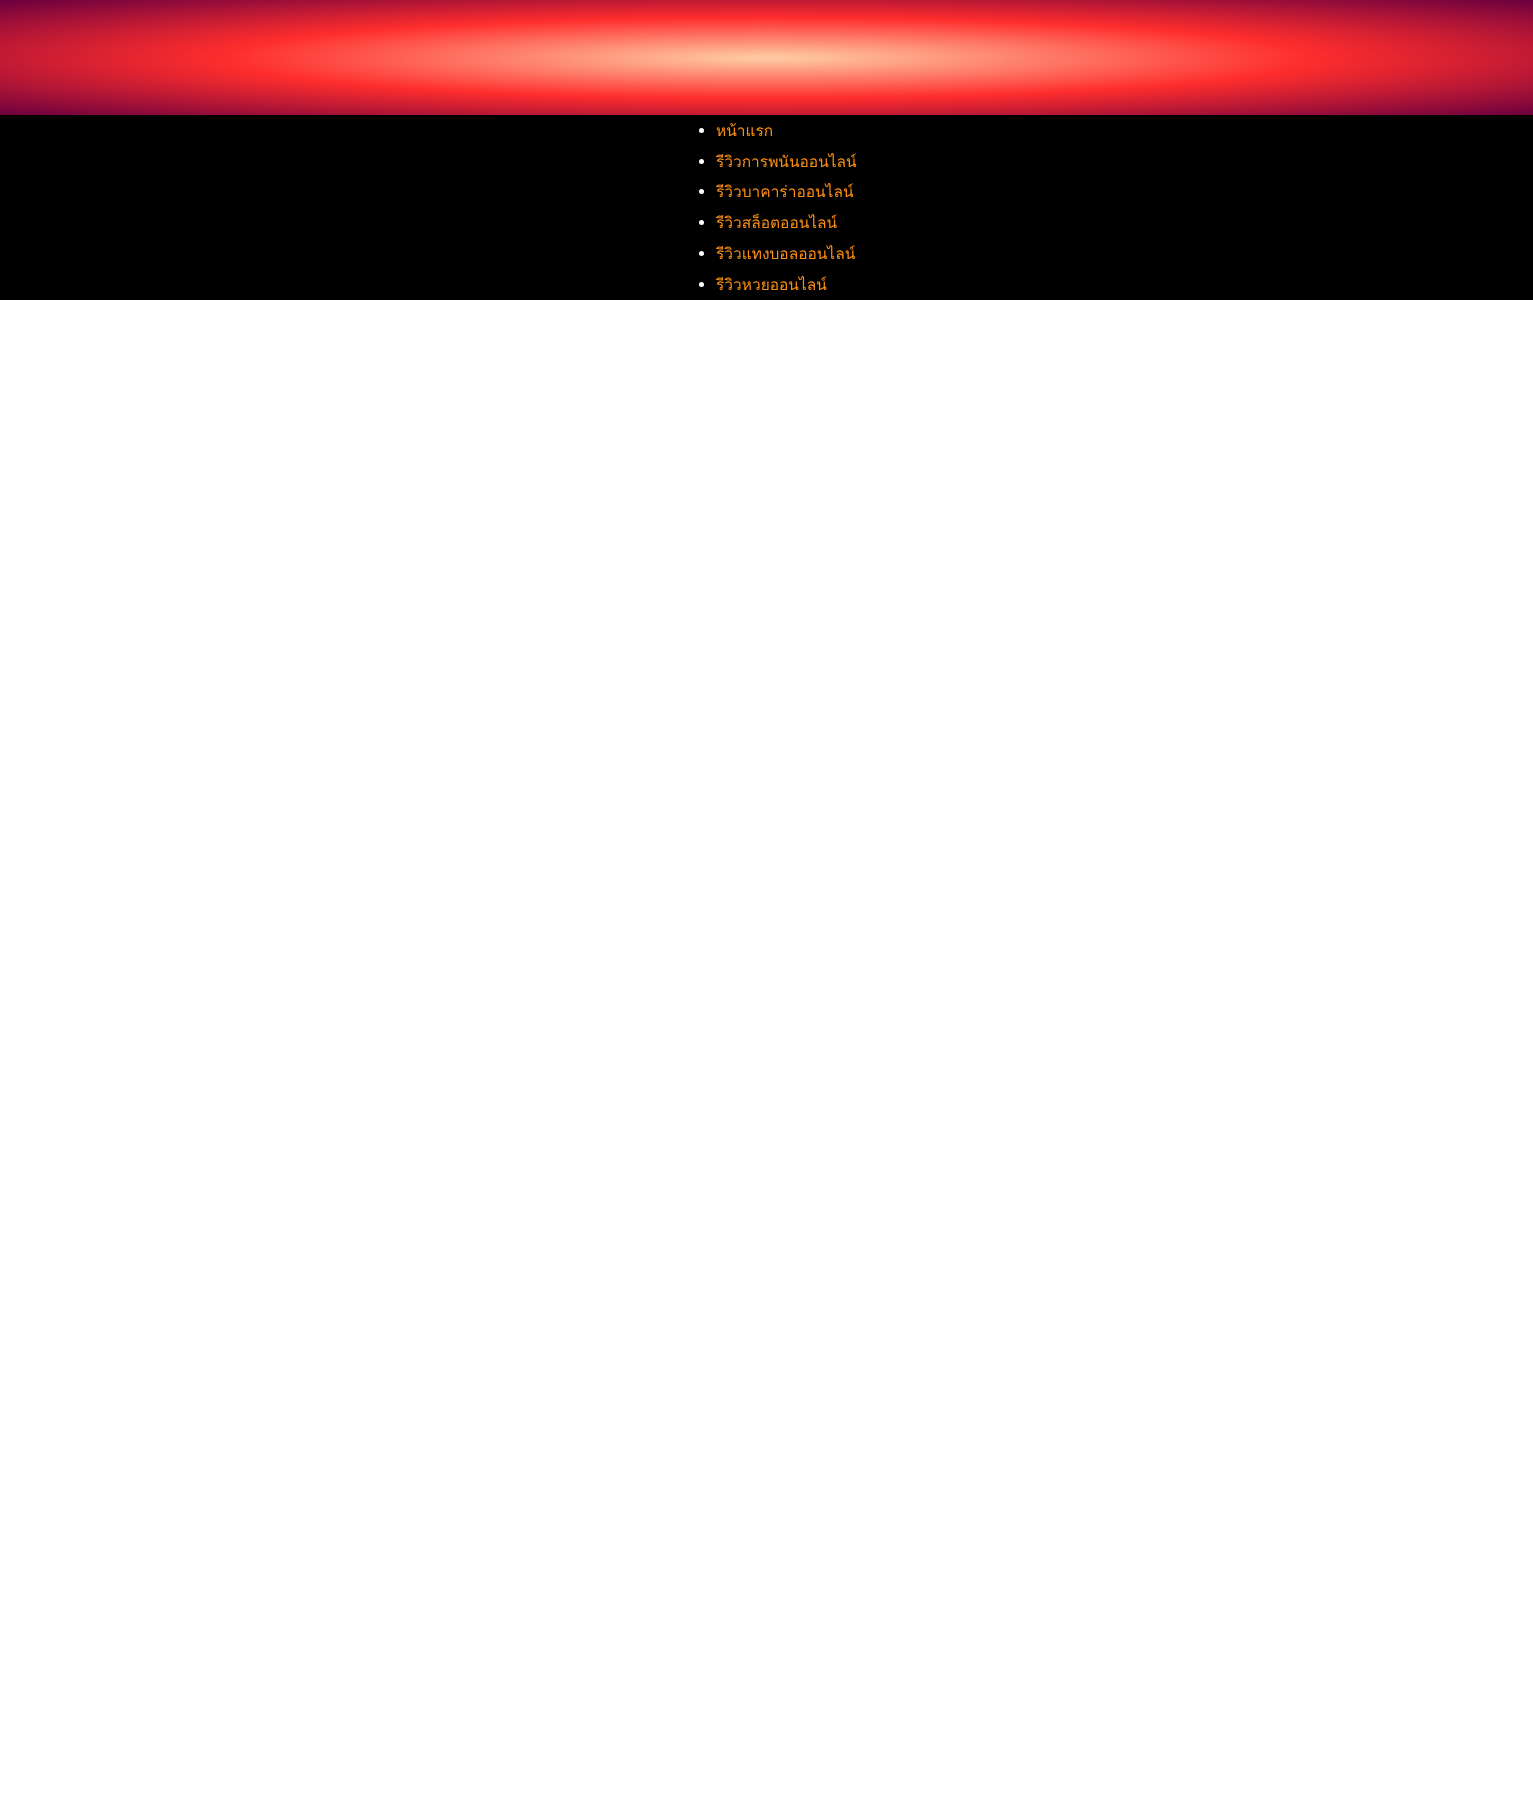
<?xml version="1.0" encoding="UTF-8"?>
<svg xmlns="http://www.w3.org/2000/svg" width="1533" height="1815">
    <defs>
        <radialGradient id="g1" gradientUnits="userSpaceOnUse" cx="0" cy="0" r="1" gradientTransform="matrix(1084 0 0 81 767 58)"><stop offset="0" stop-color="#FECDA5"/><stop offset="0.5" stop-color="#FE2D2D"/><stop offset="1" stop-color="#6B003E"/></radialGradient>
    </defs>
    <rect width="100%" height="100%" fill="#FFFFFF"/>
    <rect x="0" y="0" width="1533" height="115" fill="url(#g1)"/>
    <rect x="0" y="115" width="1533" height="185" fill="#000000"/>
    <circle cx="701.5" cy="130.5" r="2.5" fill="#FFFFFF"/>
    <text x="716" y="136" font-family="Loma" font-size="15.5" fill="#FD8F14">หน้าแรก</text>
    <circle cx="701.5" cy="161.5" r="2.5" fill="#FFFFFF"/>
    <text x="716" y="167" font-family="Loma" font-size="15.5" fill="#FD8F14">รีวิวการพนันออนไลน์</text>
    <circle cx="701.5" cy="191.5" r="2.5" fill="#FFFFFF"/>
    <text x="716" y="197" font-family="Loma" font-size="15.5" fill="#FD8F14">รีวิวบาคาร่าออนไลน์</text>
    <circle cx="701.5" cy="222.5" r="2.5" fill="#FFFFFF"/>
    <text x="716" y="228" font-family="Loma" font-size="15.5" fill="#FD8F14">รีวิวสล็อตออนไลน์</text>
    <circle cx="701.5" cy="253.5" r="2.5" fill="#FFFFFF"/>
    <text x="716" y="259" font-family="Loma" font-size="15.5" fill="#FD8F14">รีวิวแทงบอลออนไลน์</text>
    <circle cx="701.5" cy="284.5" r="2.5" fill="#FFFFFF"/>
    <text x="716" y="290" font-family="Loma" font-size="15.5" fill="#FD8F14">รีวิวหวยออนไลน์</text>
</svg>
